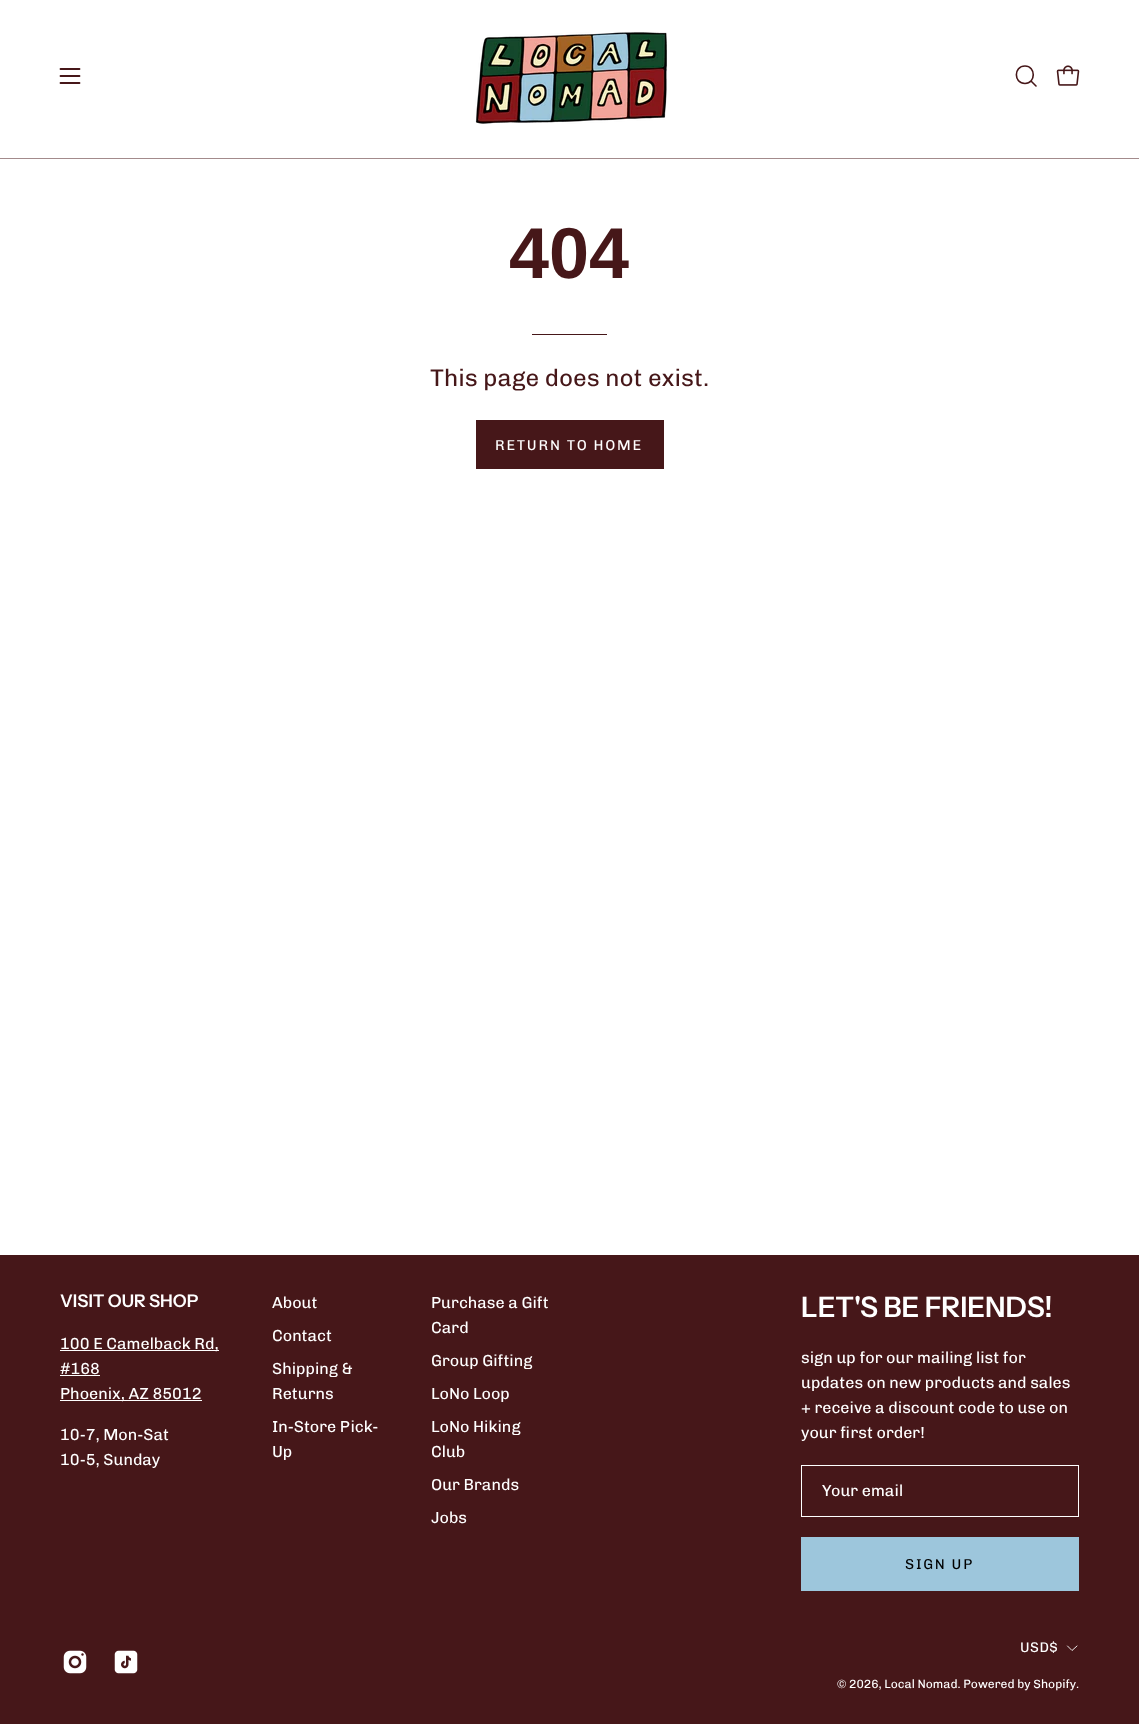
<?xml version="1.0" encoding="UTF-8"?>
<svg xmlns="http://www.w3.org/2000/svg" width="1139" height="1724">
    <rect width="100%" height="100%" fill="#FFFFFF"/>
    <path d="M 60.5 76 H 79.5 M 60.5 69 H 79.5 M 60.5 83 H 79.5" fill="none" stroke="#461719" stroke-width="1.8" stroke-linecap="round" stroke-linejoin="round"/>
    <image x="475" y="32" width="192" height="92" href="img_01.png"/>
    <path d="M 1025 83.5 C 1036 83.5 1036 66 1025 66 C 1013.5 66 1013.5 83.5 1025 83.5 Z M 1031 81 L 1036 86" fill="none" stroke="#461719" stroke-width="1.6" stroke-linecap="round" stroke-linejoin="round"/>
    <image x="1056" y="65" width="24" height="21" href="img_02.png"/>
    <rect x="0" y="158" width="1139" height="1" fill="#A38B8C"/>
    <text x="509" y="278" font-family="Liberation Sans" font-size="72" font-weight="700" fill="#461719">404</text>
    <rect x="532" y="334" width="75" height="1" fill="#461719"/>
    <text x="430" y="386" font-family="Chivo" font-size="24" fill="#461719">This page does not exist.</text>
    <rect x="476" y="420" width="188" height="49" fill="#461719"/>
    <text x="495" y="450" font-family="Chivo" font-size="14.4" letter-spacing="1.75" fill="#FFFFFF">RETURN TO HOME</text>
    <rect x="0" y="1255" width="1139" height="469" fill="#461719"/>
    <text x="60" y="1307" font-family="Instrument Sans" font-size="17.5" font-weight="600" fill="#FFFFFF">VISIT OUR SHOP</text>
    <rect x="60" y="1350" width="159" height="1" fill="#FFFFFF"/>
    <text font-family="Chivo" font-size="16" fill="#FFFFFF">
        <tspan x="60" y="1349">100 E Camelback Rd,</tspan>
        <tspan x="60" y="1374">#168</tspan>
    </text>
    <rect x="60" y="1375" width="40" height="1" fill="#FFFFFF"/>
    <rect x="60" y="1400" width="142" height="1" fill="#FFFFFF"/>
    <text x="60" y="1399" font-family="Chivo" font-size="16" fill="#FFFFFF">Phoenix, AZ 85012</text>
    <text font-family="Chivo" font-size="16" fill="#FFFFFF">
        <tspan x="60" y="1440">10-7, Mon-Sat</tspan>
        <tspan x="60" y="1465">10-5, Sunday</tspan>
    </text>
    <text x="272" y="1308" font-family="Chivo" font-size="16" fill="#FFFFFF">About</text>
    <text x="272" y="1341" font-family="Chivo" font-size="16" fill="#FFFFFF">Contact</text>
    <text font-family="Chivo" font-size="16" fill="#FFFFFF">
        <tspan x="272" y="1374">Shipping &amp;</tspan>
        <tspan x="272" y="1399">Returns</tspan>
    </text>
    <text font-family="Chivo" font-size="16" fill="#FFFFFF">
        <tspan x="272" y="1432">In-Store Pick-</tspan>
        <tspan x="272" y="1457">Up</tspan>
    </text>
    <text font-family="Chivo" font-size="16" fill="#FFFFFF">
        <tspan x="431" y="1308">Purchase a Gift</tspan>
        <tspan x="431" y="1333">Card</tspan>
    </text>
    <text x="431" y="1366" font-family="Chivo" font-size="16" fill="#FFFFFF">Group Gifting</text>
    <text x="431" y="1399" font-family="Chivo" font-size="16" fill="#FFFFFF">LoNo Loop</text>
    <text font-family="Chivo" font-size="16" fill="#FFFFFF">
        <tspan x="431" y="1432">LoNo Hiking</tspan>
        <tspan x="431" y="1457">Club</tspan>
    </text>
    <text x="431" y="1490" font-family="Chivo" font-size="16" fill="#FFFFFF">Our Brands</text>
    <text x="431" y="1523" font-family="Chivo" font-size="16" fill="#FFFFFF">Jobs</text>
    <text x="801" y="1317" font-family="Instrument Sans" font-size="28.25" font-weight="600" fill="#FFFFFF">LET'S BE FRIENDS!</text>
    <text font-family="Chivo" font-size="16" fill="#FFFFFF">
        <tspan x="801" y="1363">sign up for our mailing list for</tspan>
        <tspan x="801" y="1388">updates on new products and sales</tspan>
        <tspan x="801" y="1413">+ receive a discount code to use on</tspan>
        <tspan x="801" y="1438">your first order!</tspan>
    </text>
    <rect x="801.5" y="1465.5" width="277" height="51" fill="none" stroke="#FFFFFF"/>
    <text x="822" y="1496" font-family="Chivo" font-size="16" fill="#FFFFFF">Your email</text>
    <rect x="801" y="1537" width="278" height="54" fill="#9DC6DC"/>
    <text x="905" y="1569" font-family="Chivo" font-size="14.4" letter-spacing="1.75" fill="#000000">SIGN UP</text>
    <image x="63" y="1650" width="24" height="24" href="img_03.png"/>
    <image x="114" y="1650" width="24" height="24" href="img_04.png"/>
    <text x="1020" y="1652" font-family="Chivo" font-size="14" letter-spacing="0.5" fill="#FFFFFF">USD$</text>
    <path d="M 1077 1646 L 1072 1650.5 L 1067.5 1646" fill="none" stroke="#FFFFFF" stroke-width="0.9" stroke-linecap="round" stroke-linejoin="round"/>
    <text x="837" y="1688" font-family="Chivo" font-size="12" fill="#FFFFFF">© 2026, Local Nomad. Powered by Shopify.</text>
</svg>
